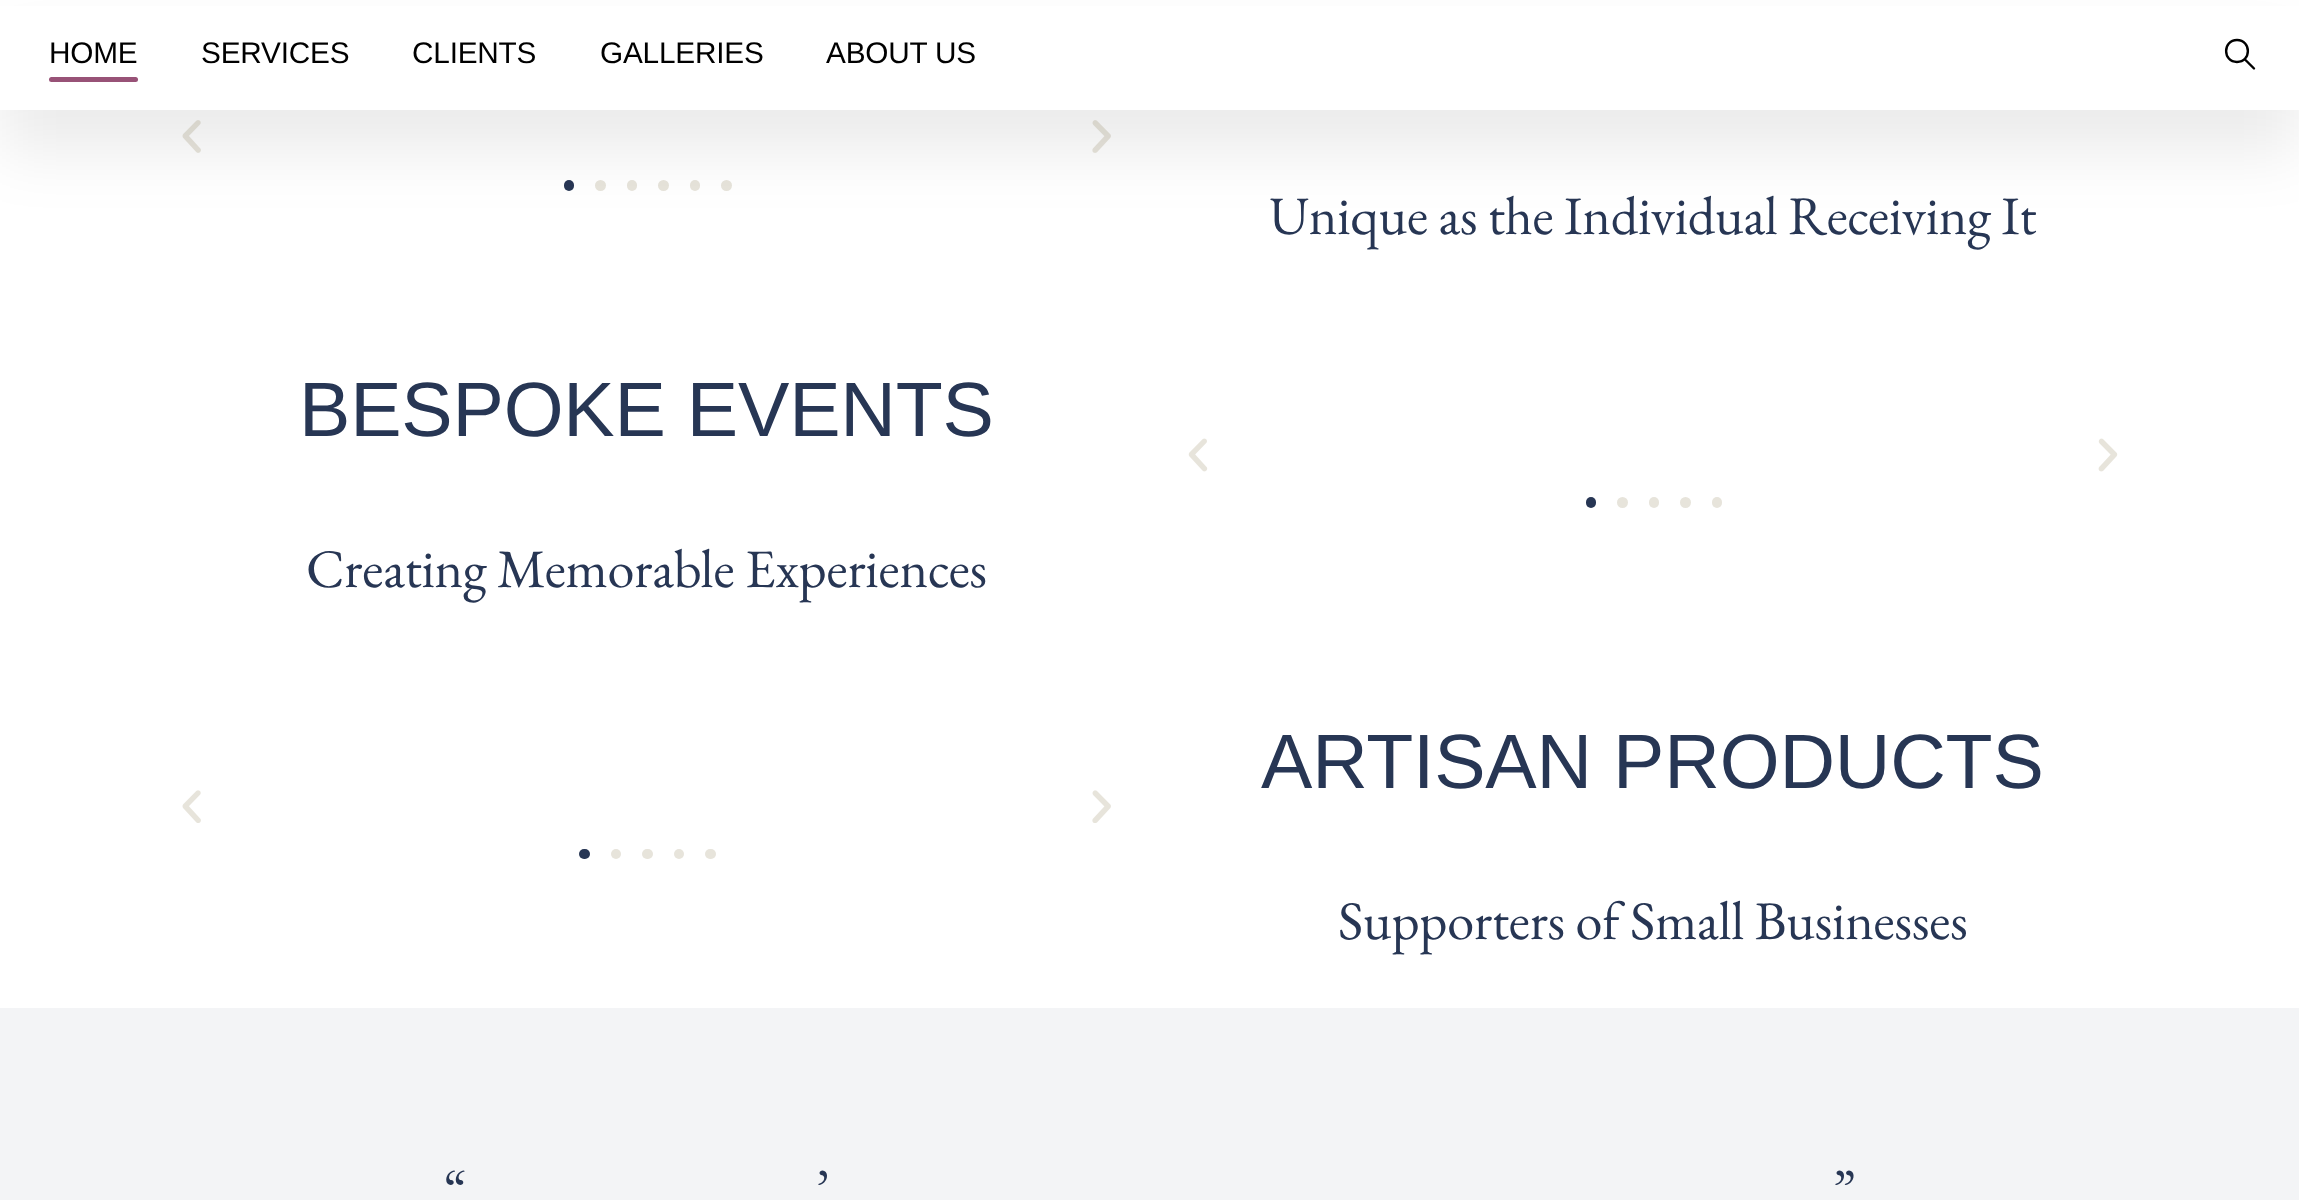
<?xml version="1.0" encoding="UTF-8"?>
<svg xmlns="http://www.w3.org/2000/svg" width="2299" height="1200">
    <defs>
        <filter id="blur1" x="-50%" y="-200%" width="200%" height="500%"><feGaussianBlur stdDeviation="31"/></filter>
    </defs>
    <rect width="100%" height="100%" fill="#FFFFFF"/>
    <image x="182" y="120" width="19" height="33" href="img_01.png"/>
    <image x="1092" y="120" width="19" height="33" href="img_02.png"/>
    <rect x="564" y="180" width="10" height="11" rx="5" fill="#273654"/>
    <circle cx="600.5" cy="185.5" r="5.5" fill="#E7E4DB"/>
    <rect x="627" y="180" width="10" height="11" rx="5" fill="#E7E4DB"/>
    <circle cx="663.5" cy="185.5" r="5.5" fill="#E7E4DB"/>
    <rect x="690" y="180" width="10" height="11" rx="5" fill="#E7E4DB"/>
    <circle cx="726.5" cy="185.5" r="5.5" fill="#E7E4DB"/>
    <rect x="0" y="42" width="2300" height="110" fill="#000000" fill-opacity="0.08" filter="url(#blur1)"/>
    <rect x="0" y="6" width="2299" height="104" fill="#FFFFFF"/>
    <text x="49" y="63" font-family="Liberation Sans" font-size="29.75" letter-spacing="-0.2" fill="#000000">HOME</text>
    <rect x="49" y="77" width="89" height="5" rx="2.5" fill="#985277"/>
    <text x="201" y="63" font-family="Liberation Sans" font-size="29.75" letter-spacing="-0.2" fill="#000000">SERVICES</text>
    <text x="412" y="63" font-family="Liberation Sans" font-size="29.75" letter-spacing="-0.2" fill="#000000">CLIENTS</text>
    <text x="600" y="63" font-family="Liberation Sans" font-size="29.75" letter-spacing="-0.2" fill="#000000">GALLERIES</text>
    <text x="826" y="63" font-family="Liberation Sans" font-size="29.75" letter-spacing="-0.2" fill="#000000">ABOUT US</text>
    <path d="M 2237 62 C 2251.5 62 2251.5 40 2237 40 C 2222.5 40 2222.5 62 2237 62 Z M 2244.5 59 L 2254 68.5" fill="none" stroke="#000000" stroke-width="2.4" stroke-linecap="round" stroke-linejoin="round"/>
    <text x="1269" y="234" font-family="EB Garamond" font-size="54.25" letter-spacing="-0.2" fill="#273654">Unique as the Individual Receiving It</text>
    <text x="299" y="436" font-family="Liberation Sans" font-size="77" letter-spacing="-0.2" fill="#273654">BESPOKE EVENTS</text>
    <text x="306" y="587" font-family="EB Garamond" font-size="54.25" letter-spacing="-0.2" fill="#273654">Creating Memorable Experiences</text>
    <image x="1188" y="438" width="20" height="34" href="img_03.png"/>
    <image x="2098" y="438" width="20" height="34" href="img_04.png"/>
    <rect x="1586" y="497" width="10" height="11" rx="5" fill="#273654"/>
    <circle cx="1622.5" cy="502.5" r="5.5" fill="#E7E4DB"/>
    <rect x="1649" y="497" width="10" height="11" rx="5" fill="#E7E4DB"/>
    <circle cx="1685.5" cy="502.5" r="5.5" fill="#E7E4DB"/>
    <rect x="1712" y="497" width="10" height="11" rx="5" fill="#E7E4DB"/>
    <image x="182" y="790" width="19" height="33" href="img_05.png"/>
    <image x="1092" y="790" width="19" height="33" href="img_06.png"/>
    <rect x="579" y="849" width="11" height="10" rx="5" fill="#273654"/>
    <circle cx="616" cy="854" r="5" fill="#E7E4DB"/>
    <rect x="642" y="849" width="11" height="10" rx="5" fill="#E7E4DB"/>
    <circle cx="679" cy="854" r="5" fill="#E7E4DB"/>
    <rect x="705" y="849" width="11" height="10" rx="5" fill="#E7E4DB"/>
    <text x="1261" y="788" font-family="Liberation Sans" font-size="77" letter-spacing="-0.2" fill="#273654">ARTISAN PRODUCTS</text>
    <text x="1338" y="939" font-family="EB Garamond" font-size="54.25" letter-spacing="-0.2" fill="#273654">Supporters of Small Businesses</text>
    <rect x="0" y="1008" width="2299" height="192" fill="#F3F4F6"/>
    <text x="444" y="1208" font-family="EB Garamond" font-size="54.25" letter-spacing="-0.2" fill="#273654">“</text>
    <text x="816" y="1208" font-family="EB Garamond" font-size="54.25" letter-spacing="-0.2" fill="#273654">’</text>
    <text x="1833" y="1208" font-family="EB Garamond" font-size="54.25" letter-spacing="-0.2" fill="#273654">”</text>
</svg>
